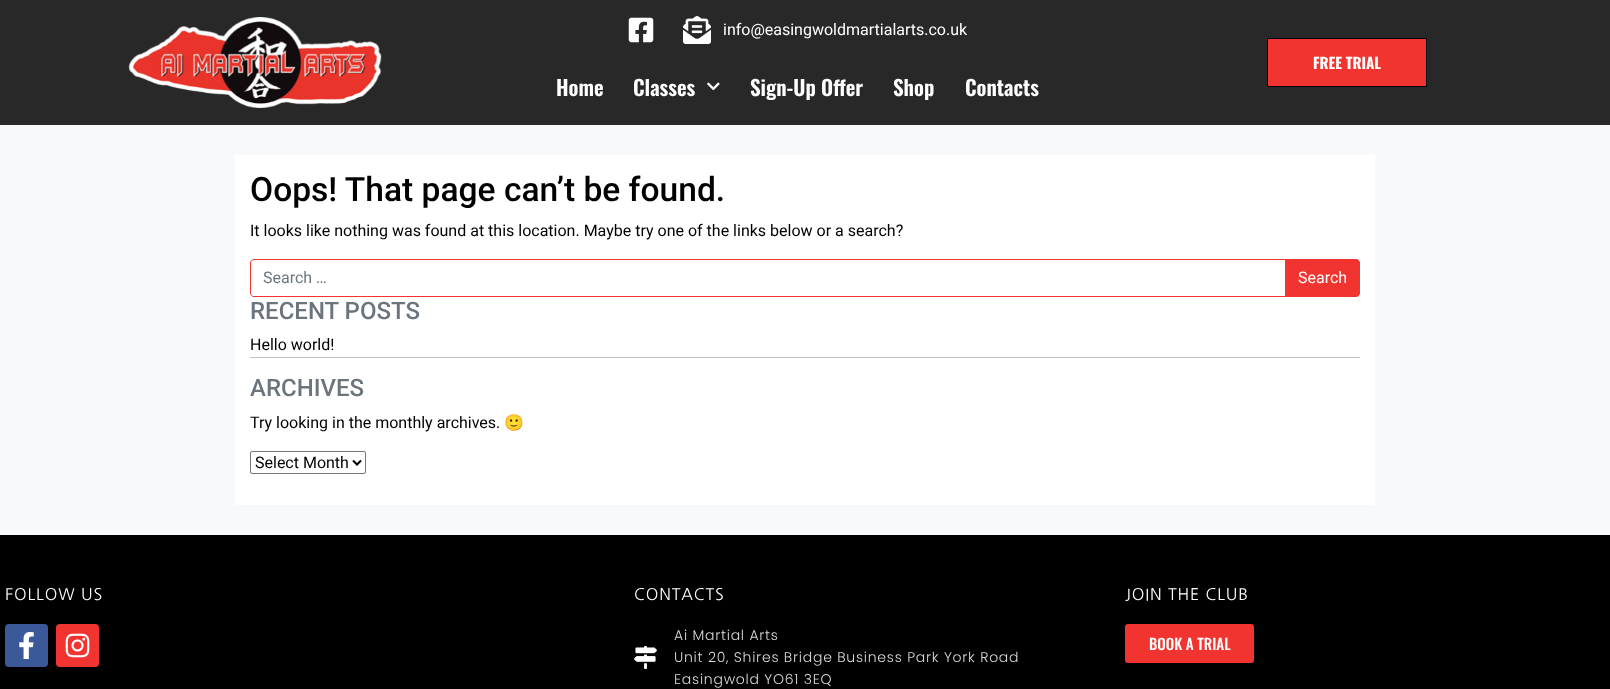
<?xml version="1.0" encoding="UTF-8"?>
<svg xmlns="http://www.w3.org/2000/svg" width="1610" height="689">
    <rect width="100%" height="100%" fill="#F8F9FA"/>
    <rect x="0" y="0" width="1610" height="125" fill="#292828"/>
    <image x="128" y="17" width="254" height="91" href="img_01.png"/>
    <image x="628" y="17" width="26" height="26" href="img_02.png"/>
    <image x="683" y="16" width="28" height="28" href="img_03.png"/>
    <text x="723" y="35" font-family="Roboto" font-size="16" fill="#FFFFFF">info@easingwoldmartialarts.co.uk</text>
    <text x="556" y="96" font-family="Oswald" font-size="21" font-weight="600" fill="#FFFFFF">Home</text>
    <text x="633" y="96" font-family="Oswald" font-size="21" font-weight="600" fill="#FFFFFF">Classes</text>
    <image x="707" y="82" width="13" height="9" href="img_04.png"/>
    <text x="750" y="96" font-family="Oswald" font-size="21" font-weight="600" fill="#FFFFFF">Sign-Up Offer</text>
    <text x="893" y="96" font-family="Oswald" font-size="21" font-weight="600" fill="#FFFFFF">Shop</text>
    <text x="965" y="96" font-family="Oswald" font-size="21" font-weight="600" fill="#FFFFFF">Contacts</text>
    <rect x="1267.5" y="38.5" width="159" height="48" fill="#F23430" stroke="#020202"/>
    <text x="1313" y="69" font-family="Oswald" font-size="15" font-weight="700" fill="#FFFFFF">FREE TRIAL</text>
    <rect x="235" y="155" width="1140" height="350" fill="#FFFFFF"/>
    <text x="250" y="201" font-family="Roboto" font-size="33.6" font-weight="500" fill="#000000">Oops! That page can’t be found.</text>
    <text x="250" y="236" font-family="Roboto" font-size="16" fill="#000000">It looks like nothing was found at this location. Maybe try one of the links below or a search?</text>
    <path d="M 254 259.5 H 1285.5 V 296.5 H 254 C 252 296.5 250.5 295 250.5 293 V 263 C 250.5 261 252 259.5 254 259.5 Z" fill="none" stroke="#F23430"/>
    <text x="263" y="283" font-family="Roboto" font-size="16" fill="#6C757D">Search …</text>
    <path d="M 1285.5 259.5 H 1356 C 1358 259.5 1359.5 261 1359.5 263 V 293 C 1359.5 295 1358 296.5 1356 296.5 H 1285.5 Z" fill="#F23430" stroke="#F23430"/>
    <text x="1298" y="283" font-family="Roboto" font-size="16" fill="#FFFFFF">Search</text>
    <text x="250" y="319" font-family="Roboto" font-size="24" font-weight="500" fill="#6C757D">RECENT POSTS</text>
    <rect x="250" y="357" width="1110" height="1" fill="#C7C1C1"/>
    <text x="250" y="350" font-family="Roboto" font-size="16" fill="#000000">Hello world!</text>
    <text x="250" y="396" font-family="Roboto" font-size="24" font-weight="500" fill="#6C757D">ARCHIVES</text>
    <text x="250" y="428" font-family="Roboto" font-size="16" fill="#000000">Try looking in the monthly archives.</text>
    <text x="504" y="428" font-family="Noto Color Emoji" font-size="16" fill="#000000">🙂</text>
    <rect x="250.5" y="451.5" width="115" height="22" rx="1.5" fill="none" stroke="#767676"/>
    <path d="M 353 460.5 L 357 464.5 L 361 460.5" fill="none" stroke="#000000" stroke-width="2"/>
    <text x="255" y="468" font-family="Roboto" font-size="16" fill="#000000">Select Month</text>
    <rect x="0" y="535" width="1610" height="154" fill="#000000"/>
    <text x="5" y="600" font-family="NanumGothic" font-size="16" letter-spacing="0.9" fill="#FFFFFF">FOLLOW US</text>
    <rect x="5" y="624" width="43" height="43" rx="4" fill="#3B5998"/>
    <image x="19" y="632" width="15" height="27" href="img_05.png"/>
    <rect x="56" y="624" width="43" height="43" rx="4" fill="#F23430"/>
    <image x="65" y="633" width="25" height="25" href="img_06.png"/>
    <text x="634" y="600" font-family="NanumGothic" font-size="16" letter-spacing="0.9" fill="#FFFFFF">CONTACTS</text>
    <image x="634" y="646" width="23" height="23" href="img_07.png"/>
    <text font-family="Poppins" font-size="14" font-weight="300" letter-spacing="0.75" fill="#DADADA">
        <tspan x="674" y="640">Ai Martial Arts</tspan>
        <tspan x="674" y="662">Unit 20, Shires Bridge Business Park York Road</tspan>
        <tspan x="674" y="684">Easingwold YO61 3EQ</tspan>
    </text>
    <text x="1125" y="600" font-family="NanumGothic" font-size="16" letter-spacing="0.9" fill="#FFFFFF">JOIN THE CLUB</text>
    <rect x="1125" y="624" width="129" height="39" rx="3" fill="#F23430"/>
    <text x="1149" y="650" font-family="Oswald" font-size="15" font-weight="500" fill="#FFFFFF">BOOK A TRIAL</text>
</svg>
